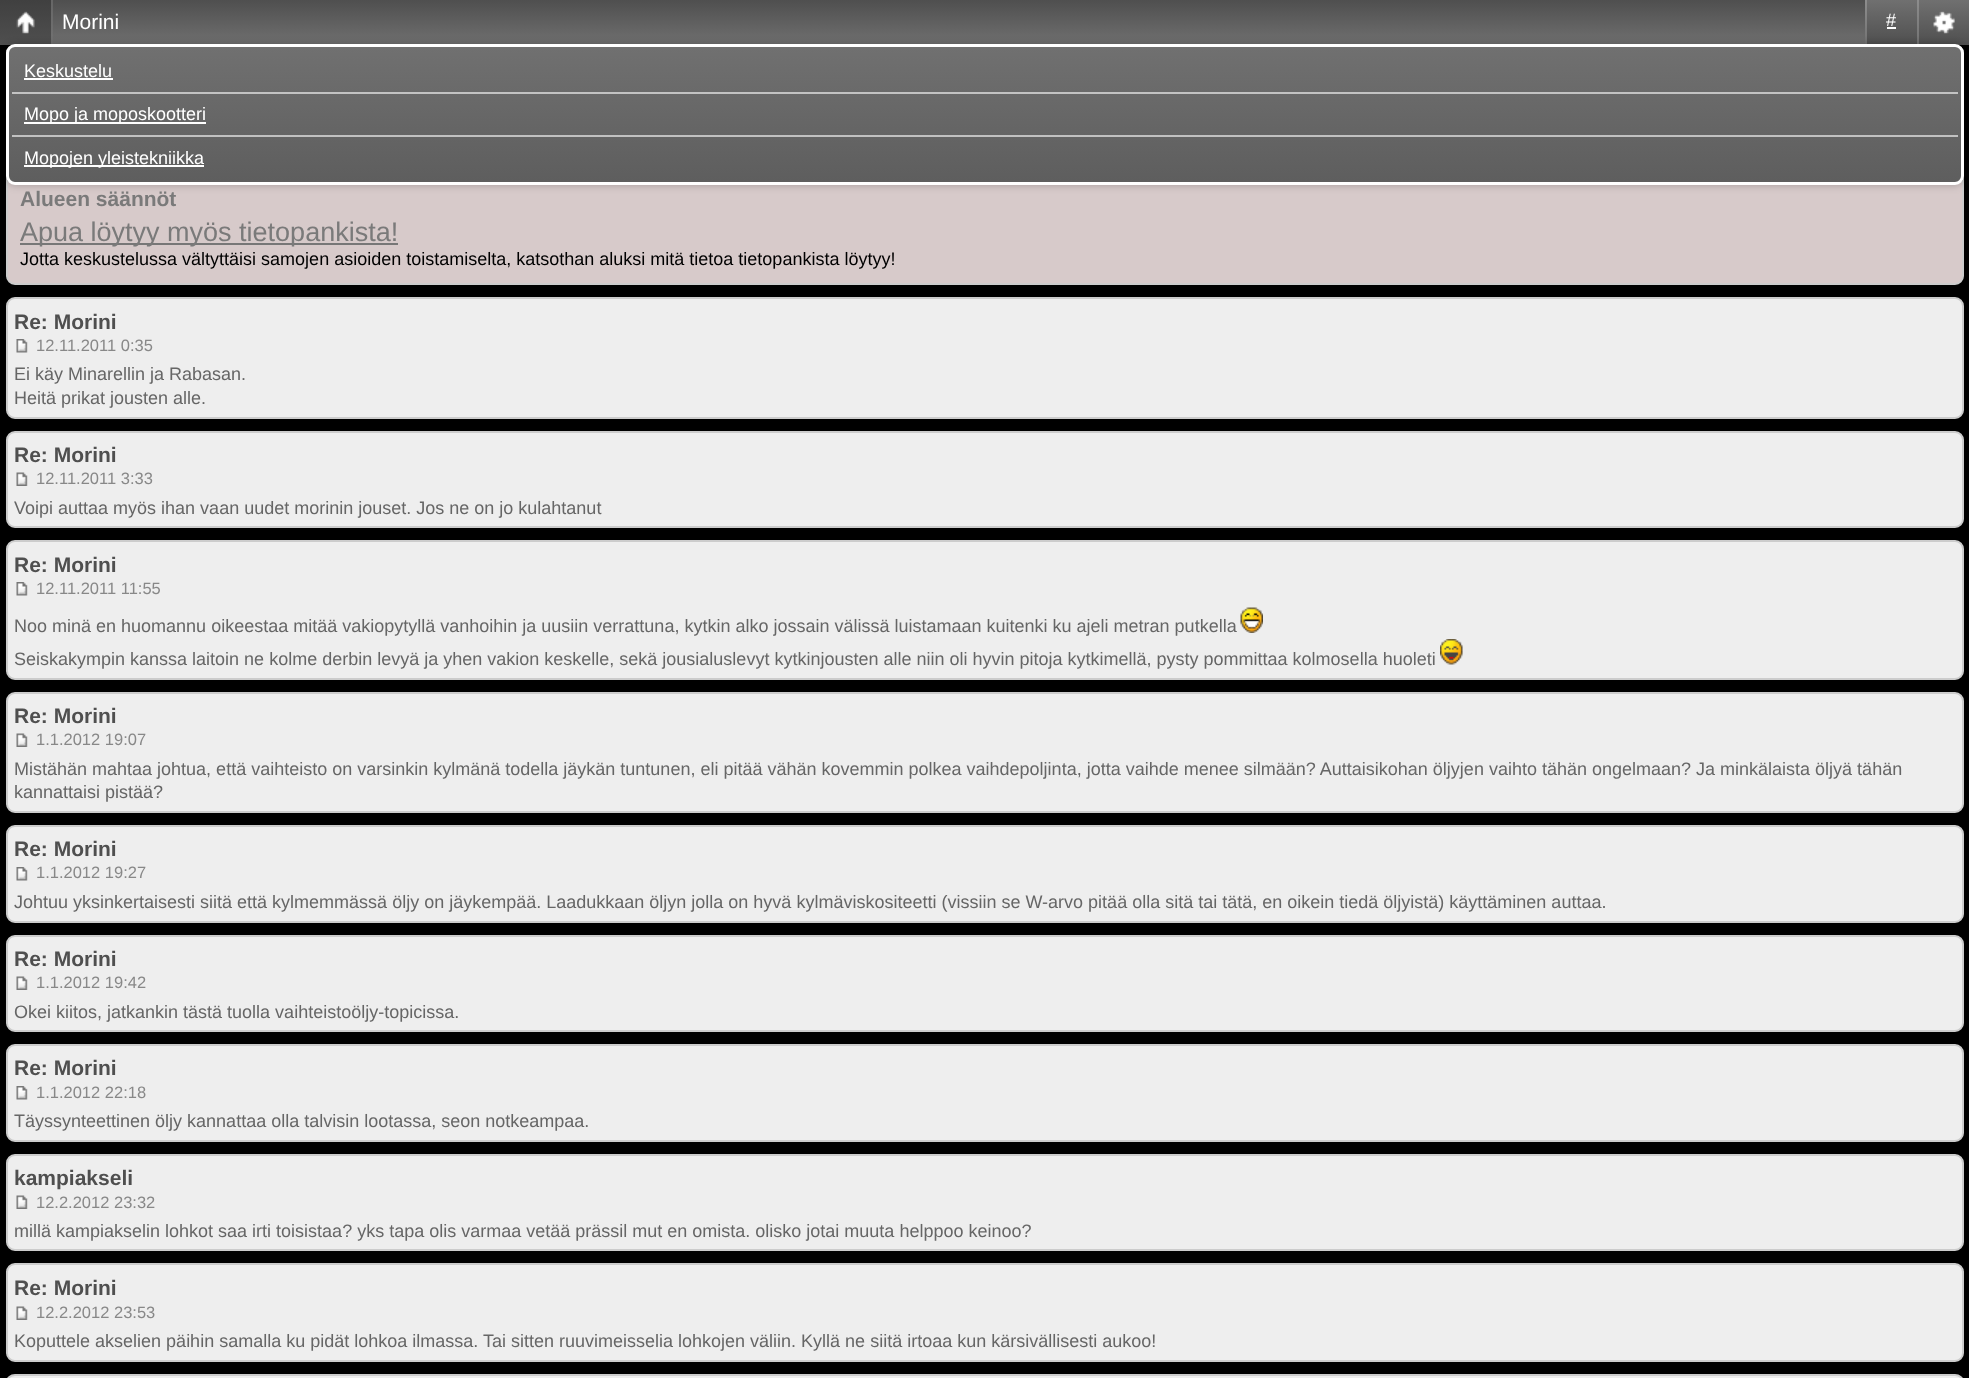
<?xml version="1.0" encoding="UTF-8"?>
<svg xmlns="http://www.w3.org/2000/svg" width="1969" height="1378">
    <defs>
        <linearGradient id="g1" gradientUnits="userSpaceOnUse" x1="0" y1="0" x2="0" y2="45"><stop offset="0" stop-color="#4F4F4F"/><stop offset="1" stop-color="#707070"/></linearGradient>
        <linearGradient id="g2" gradientUnits="userSpaceOnUse" x1="1865" y1="0" x2="1865" y2="45"><stop offset="0" stop-color="#707070"/><stop offset="1" stop-color="#4F4F4F"/></linearGradient>
        <linearGradient id="g3" gradientUnits="userSpaceOnUse" x1="1865" y1="0" x2="1865" y2="45"><stop offset="0" stop-color="#8D8D8D"/><stop offset="1" stop-color="#727272"/></linearGradient>
        <linearGradient id="g4" gradientUnits="userSpaceOnUse" x1="1917" y1="0" x2="1917" y2="45"><stop offset="0" stop-color="#707070"/><stop offset="1" stop-color="#4F4F4F"/></linearGradient>
        <linearGradient id="g5" gradientUnits="userSpaceOnUse" x1="1917" y1="0" x2="1917" y2="45"><stop offset="0" stop-color="#8D8D8D"/><stop offset="1" stop-color="#727272"/></linearGradient>
        <linearGradient id="g6" gradientUnits="userSpaceOnUse" x1="0" y1="0" x2="0" y2="45"><stop offset="0" stop-color="#404040"/><stop offset="1" stop-color="#4F4F4F"/></linearGradient>
        <linearGradient id="g7" gradientUnits="userSpaceOnUse" x1="0" y1="0" x2="0" y2="45"><stop offset="0" stop-color="#666666"/><stop offset="1" stop-color="#727272"/></linearGradient>
        <filter id="blur1" x="-50%" y="-200%" width="200%" height="500%"><feGaussianBlur stdDeviation="4"/></filter>
        <clipPath id="clip1"><rect x="6" y="44" width="1958" height="141" rx="9"/></clipPath>
        <linearGradient id="g8" gradientUnits="userSpaceOnUse" x1="9" y1="47" x2="9" y2="182"><stop offset="0" stop-color="#707070"/><stop offset="1" stop-color="#5E5E5E"/></linearGradient>
    </defs>
    <rect width="100%" height="100%" fill="#000000"/>
    <rect x="53" y="0" width="1812" height="44" fill="url(#g1)"/>
    <text x="62" y="29" font-family="Liberation Sans" font-size="21" fill="#FFFFFF">Morini</text>
    <rect x="1867" y="0" width="50" height="44" fill="url(#g2)"/>
    <rect x="1865" y="0" width="2" height="45" fill="url(#g3)"/>
    <text x="1886" y="26" font-family="Liberation Sans" font-size="18" fill="#FFFFFF">#</text>
    <rect x="1887" y="27" width="9" height="2" fill="#FFFFFF"/>
    <rect x="1919" y="0" width="50" height="45" fill="url(#g4)"/>
    <rect x="1917" y="0" width="2" height="45" fill="url(#g5)"/>
    <image x="1933" y="11" width="22" height="23" href="img_01.png"/>
    <rect x="0" y="0" width="51" height="45" fill="url(#g6)"/>
    <rect x="51" y="0" width="2" height="45" fill="url(#g7)"/>
    <image x="16" y="11" width="19" height="23" href="img_02.png"/>
    <rect x="7" y="169" width="1956" height="115" rx="8" fill="#D7CACA" stroke="#CCCCCC" stroke-width="2"/>
    <rect x="6" y="44" width="1958" height="141" rx="9" fill="#000000" fill-opacity="0.25" filter="url(#blur1)"/>
    <g clip-path="url(#clip1)">
        <rect x="6" y="47" width="1958" height="135" fill="url(#g8)"/>
    </g>
    <rect x="7.5" y="45.5" width="1955" height="138" rx="7.5" fill="none" stroke="#FFFFFF" stroke-width="3"/>
    <text x="24" y="77" font-family="Liberation Sans" font-size="18" fill="#FFFFFF">Keskustelu</text>
    <rect x="24" y="78" width="89" height="2" fill="#FFFFFF"/>
    <rect x="12" y="92" width="1946" height="2" fill="#C3C3C3"/>
    <rect x="24" y="122" width="182" height="2" fill="#FFFFFF"/>
    <text x="24" y="120" font-family="Liberation Sans" font-size="18" fill="#FFFFFF">Mopo ja moposkootteri</text>
    <rect x="12" y="135" width="1946" height="2" fill="#C1C1C1"/>
    <rect x="24" y="165" width="180" height="2" fill="#FFFFFF"/>
    <text x="24" y="164" font-family="Liberation Sans" font-size="18" fill="#FFFFFF">Mopojen yleistekniikka</text>
    <text x="20" y="206" font-family="Liberation Sans" font-size="21" font-weight="700" fill="#7A7A7A">Alueen säännöt</text>
    <rect x="20" y="243" width="378" height="2" fill="#777777"/>
    <text x="20" y="241" font-family="Liberation Sans" font-size="27" fill="#7A7A7A">Apua löytyy myös tietopankista!</text>
    <text x="20" y="265" font-family="Liberation Sans" font-size="18" fill="#000000">Jotta keskustelussa vältyttäisi samojen asioiden toistamiselta, katsothan aluksi mitä tietoa tietopankista löytyy!</text>
    <rect x="7" y="298" width="1956" height="120" rx="8" fill="#EEEEEE" stroke="#CCCCCC" stroke-width="2"/>
    <text x="14" y="329" font-family="Liberation Sans" font-size="21" font-weight="700" fill="#4F4F4F">Re: Morini</text>
    <image x="16" y="339" width="12" height="14" href="img_03.png"/>
    <text x="36" y="351" font-family="Liberation Sans" font-size="16.5" fill="#888888">12.11.2011 0:35</text>
    <text font-family="Liberation Sans" font-size="18" fill="#666666">
        <tspan x="14" y="380">Ei käy Minarellin ja Rabasan.</tspan>
        <tspan x="14" y="404">Heitä prikat jousten alle.</tspan>
    </text>
    <rect x="7" y="432" width="1956" height="95" rx="8" fill="#EEEEEE" stroke="#CCCCCC" stroke-width="2"/>
    <text x="14" y="462" font-family="Liberation Sans" font-size="21" font-weight="700" fill="#4F4F4F">Re: Morini</text>
    <image x="16" y="472" width="12" height="14" href="img_04.png"/>
    <text x="36" y="484" font-family="Liberation Sans" font-size="16.5" fill="#888888">12.11.2011 3:33</text>
    <text x="14" y="514" font-family="Liberation Sans" font-size="18" fill="#666666">Voipi auttaa myös ihan vaan uudet morinin jouset. Jos ne on jo kulahtanut</text>
    <rect x="7" y="541" width="1956" height="138" rx="8" fill="#EEEEEE" stroke="#CCCCCC" stroke-width="2"/>
    <text x="14" y="572" font-family="Liberation Sans" font-size="21" font-weight="700" fill="#4F4F4F">Re: Morini</text>
    <image x="16" y="582" width="12" height="14" href="img_03.png"/>
    <text x="36" y="594" font-family="Liberation Sans" font-size="16.5" fill="#888888">12.11.2011 11:55</text>
    <text x="14" y="632" font-family="Liberation Sans" font-size="18" fill="#666666">Noo minä en huomannu oikeestaa mitää vakiopytyllä vanhoihin ja uusiin verrattuna, kytkin alko jossain välissä luistamaan kuitenki ku ajeli metran putkella</text>
    <image x="1240" y="607" width="23" height="26" href="img_05.png"/>
    <text x="14" y="665" font-family="Liberation Sans" font-size="18" fill="#666666">Seiskakympin kanssa laitoin ne kolme derbin levyä ja yhen vakion keskelle, sekä jousialuslevyt kytkinjousten alle niin oli hyvin pitoja kytkimellä, pysty pommittaa kolmosella huoleti</text>
    <image x="1440" y="639" width="23" height="26" href="img_06.png"/>
    <rect x="7" y="693" width="1956" height="119" rx="8" fill="#EEEEEE" stroke="#CCCCCC" stroke-width="2"/>
    <text x="14" y="723" font-family="Liberation Sans" font-size="21" font-weight="700" fill="#4F4F4F">Re: Morini</text>
    <image x="16" y="733" width="12" height="14" href="img_04.png"/>
    <text x="36" y="745" font-family="Liberation Sans" font-size="16.5" fill="#888888">1.1.2012 19:07</text>
    <text font-family="Liberation Sans" font-size="18" fill="#666666">
        <tspan x="14" y="775">Mistähän mahtaa johtua, että vaihteisto on varsinkin kylmänä todella jäykän tuntunen, eli pitää vähän kovemmin polkea vaihdepoljinta, jotta vaihde menee silmään? Auttaisikohan öljyjen vaihto tähän ongelmaan? Ja minkälaista öljyä tähän</tspan>
        <tspan x="14" y="798">kannattaisi pistää?</tspan>
    </text>
    <rect x="7" y="826" width="1956" height="96" rx="8" fill="#EEEEEE" stroke="#CCCCCC" stroke-width="2"/>
    <text x="14" y="856" font-family="Liberation Sans" font-size="21" font-weight="700" fill="#4F4F4F">Re: Morini</text>
    <image x="16" y="867" width="12" height="14" href="img_03.png"/>
    <text x="36" y="878" font-family="Liberation Sans" font-size="16.5" fill="#888888">1.1.2012 19:27</text>
    <text x="14" y="908" font-family="Liberation Sans" font-size="18" fill="#666666">Johtuu yksinkertaisesti siitä että kylmemmässä öljy on jäykempää. Laadukkaan öljyn jolla on hyvä kylmäviskositeetti (vissiin se W-arvo pitää olla sitä tai tätä, en oikein tiedä öljyistä) käyttäminen auttaa.</text>
    <rect x="7" y="936" width="1956" height="95" rx="8" fill="#EEEEEE" stroke="#CCCCCC" stroke-width="2"/>
    <text x="14" y="966" font-family="Liberation Sans" font-size="21" font-weight="700" fill="#4F4F4F">Re: Morini</text>
    <image x="16" y="976" width="12" height="14" href="img_04.png"/>
    <text x="36" y="988" font-family="Liberation Sans" font-size="16.5" fill="#888888">1.1.2012 19:42</text>
    <text x="14" y="1018" font-family="Liberation Sans" font-size="18" fill="#666666">Okei kiitos, jatkankin tästä tuolla vaihteistoöljy-topicissa.</text>
    <rect x="7" y="1045" width="1956" height="96" rx="8" fill="#EEEEEE" stroke="#CCCCCC" stroke-width="2"/>
    <text x="14" y="1075" font-family="Liberation Sans" font-size="21" font-weight="700" fill="#4F4F4F">Re: Morini</text>
    <image x="16" y="1086" width="12" height="14" href="img_03.png"/>
    <text x="36" y="1098" font-family="Liberation Sans" font-size="16.5" fill="#888888">1.1.2012 22:18</text>
    <text x="14" y="1127" font-family="Liberation Sans" font-size="18" fill="#666666">Täyssynteettinen öljy kannattaa olla talvisin lootassa, seon notkeampaa.</text>
    <rect x="7" y="1155" width="1956" height="95" rx="8" fill="#EEEEEE" stroke="#CCCCCC" stroke-width="2"/>
    <text x="14" y="1185" font-family="Liberation Sans" font-size="21" font-weight="700" fill="#4F4F4F">kampiakseli</text>
    <image x="16" y="1195" width="12" height="14" href="img_04.png"/>
    <text x="36" y="1208" font-family="Liberation Sans" font-size="16.5" fill="#888888">12.2.2012 23:32</text>
    <text x="14" y="1237" font-family="Liberation Sans" font-size="18" fill="#666666">millä kampiakselin lohkot saa irti toisistaa? yks tapa olis varmaa vetää prässil mut en omista. olisko jotai muuta helppoo keinoo?</text>
    <rect x="7" y="1264" width="1956" height="97" rx="8" fill="#EEEEEE" stroke="#CCCCCC" stroke-width="2"/>
    <text x="14" y="1295" font-family="Liberation Sans" font-size="21" font-weight="700" fill="#4F4F4F">Re: Morini</text>
    <image x="16" y="1306" width="12" height="14" href="img_04.png"/>
    <text x="36" y="1318" font-family="Liberation Sans" font-size="16.5" fill="#888888">12.2.2012 23:53</text>
    <text x="14" y="1347" font-family="Liberation Sans" font-size="18" fill="#666666">Koputtele akselien päihin samalla ku pidät lohkoa ilmassa. Tai sitten ruuvimeisselia lohkojen väliin. Kyllä ne siitä irtoaa kun kärsivällisesti aukoo!</text>
    <rect x="7" y="1375" width="1956" height="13" rx="8" fill="#EEEEEE" stroke="#CCCCCC" stroke-width="2"/>
</svg>
